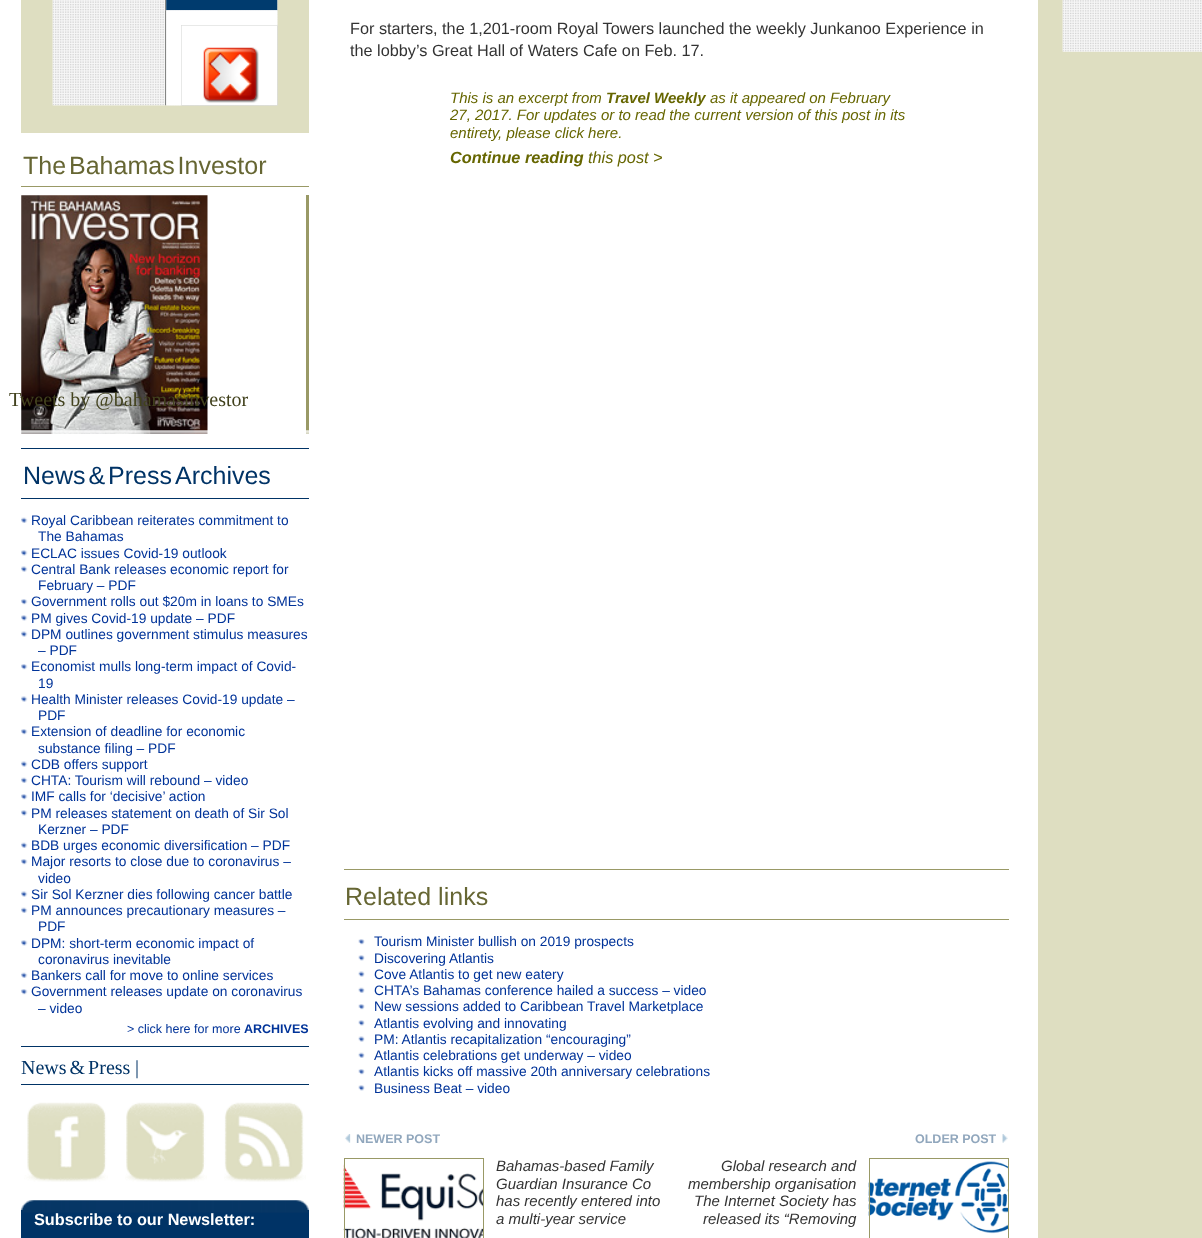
<?xml version="1.0" encoding="UTF-8"?>
<svg xmlns="http://www.w3.org/2000/svg" width="1202" height="1238">
    <rect width="100%" height="100%" fill="#FFFFFF"/>
    <rect x="21" y="0" width="288" height="133" fill="#DEDEC1"/>
    <image x="52" y="0" width="226" height="106" href="img_01.png"/>
    <rect x="21" y="186" width="288" height="1" fill="#999966"/>
    <text x="23" y="174" word-spacing="-4" font-family="Liberation Sans" font-size="25" fill="#666633">The Bahamas Investor</text>
    <image x="21" y="195" width="187" height="239" href="img_02.png"/>
    <rect x="306" y="195" width="3" height="239" fill="#999966"/>
    <text x="9" y="406" font-family="Liberation Serif" font-size="20" fill="#42421E">Tweets by @bahamasinvestor</text>
    <image x="21" y="430" width="288" height="4" href="img_03.png"/>
    <rect x="21" y="448" width="288" height="1" fill="#003366"/>
    <rect x="21" y="498" width="288" height="1" fill="#003366"/>
    <text x="23" y="484" word-spacing="-4" font-family="Liberation Sans" font-size="25" fill="#003366">News &amp; Press</text>
    <text x="175" y="484" font-family="Liberation Sans" font-size="25" fill="#003366">Archives</text>
    <image x="21" y="517" width="7" height="6" href="img_04.png"/>
    <text x="31" y="525" font-family="Liberation Sans" font-size="13.75" fill="#003399">Royal Caribbean reiterates commitment to</text>
    <text x="38" y="541" font-family="Liberation Sans" font-size="13.75" fill="#003399">The Bahamas</text>
    <image x="21" y="550" width="7" height="6" href="img_05.png"/>
    <text x="31" y="558" font-family="Liberation Sans" font-size="13.75" fill="#003399">ECLAC issues Covid-19 outlook</text>
    <image x="21" y="566" width="7" height="6" href="img_06.png"/>
    <text x="31" y="574" font-family="Liberation Sans" font-size="13.75" fill="#003399">Central Bank releases economic report for</text>
    <text x="38" y="590" font-family="Liberation Sans" font-size="13.75" fill="#003399">February – PDF</text>
    <image x="21" y="599" width="7" height="6" href="img_07.png"/>
    <text x="31" y="606" font-family="Liberation Sans" font-size="13.75" fill="#003399">Government rolls out $20m in loans to SMEs</text>
    <image x="21" y="615" width="7" height="6" href="img_05.png"/>
    <text x="31" y="623" font-family="Liberation Sans" font-size="13.75" fill="#003399">PM gives Covid-19 update – PDF</text>
    <image x="21" y="631" width="7" height="6" href="img_06.png"/>
    <text x="31" y="639" font-family="Liberation Sans" font-size="13.75" fill="#003399">DPM outlines government stimulus measures</text>
    <text x="38" y="655" font-family="Liberation Sans" font-size="13.75" fill="#003399">– PDF</text>
    <image x="21" y="664" width="7" height="6" href="img_07.png"/>
    <text x="31" y="671" font-family="Liberation Sans" font-size="13.75" fill="#003399">Economist mulls long-term impact of Covid-</text>
    <text x="38" y="688" font-family="Liberation Sans" font-size="13.75" fill="#003399">19</text>
    <image x="21" y="696" width="7" height="6" href="img_06.png"/>
    <text x="31" y="704" font-family="Liberation Sans" font-size="13.75" fill="#003399">Health Minister releases Covid-19 update –</text>
    <text x="38" y="720" font-family="Liberation Sans" font-size="13.75" fill="#003399">PDF</text>
    <image x="21" y="729" width="7" height="6" href="img_07.png"/>
    <text x="31" y="736" font-family="Liberation Sans" font-size="13.75" fill="#003399">Extension of deadline for economic</text>
    <text x="38" y="753" font-family="Liberation Sans" font-size="13.75" fill="#003399">substance filing – PDF</text>
    <image x="21" y="761" width="7" height="6" href="img_06.png"/>
    <text x="31" y="769" font-family="Liberation Sans" font-size="13.75" fill="#003399">CDB offers support</text>
    <image x="21" y="777" width="7" height="6" href="img_04.png"/>
    <text x="31" y="785" font-family="Liberation Sans" font-size="13.75" fill="#003399">CHTA: Tourism will rebound – video</text>
    <image x="21" y="794" width="7" height="6" href="img_07.png"/>
    <text x="31" y="801" font-family="Liberation Sans" font-size="13.75" fill="#003399">IMF calls for ‘decisive’ action</text>
    <image x="21" y="810" width="7" height="6" href="img_05.png"/>
    <text x="31" y="818" font-family="Liberation Sans" font-size="13.75" fill="#003399">PM releases statement on death of Sir Sol</text>
    <text x="38" y="834" font-family="Liberation Sans" font-size="13.75" fill="#003399">Kerzner – PDF</text>
    <image x="21" y="842" width="7" height="6" href="img_04.png"/>
    <text x="31" y="850" font-family="Liberation Sans" font-size="13.75" fill="#003399">BDB urges economic diversification – PDF</text>
    <image x="21" y="859" width="7" height="6" href="img_07.png"/>
    <text x="31" y="866" font-family="Liberation Sans" font-size="13.75" fill="#003399">Major resorts to close due to coronavirus –</text>
    <text x="38" y="883" font-family="Liberation Sans" font-size="13.75" fill="#003399">video</text>
    <image x="21" y="891" width="7" height="6" href="img_06.png"/>
    <text x="31" y="899" font-family="Liberation Sans" font-size="13.75" fill="#003399">Sir Sol Kerzner dies following cancer battle</text>
    <image x="21" y="907" width="7" height="6" href="img_04.png"/>
    <text x="31" y="915" font-family="Liberation Sans" font-size="13.75" fill="#003399">PM announces precautionary measures –</text>
    <text x="38" y="931" font-family="Liberation Sans" font-size="13.75" fill="#003399">PDF</text>
    <image x="21" y="940" width="7" height="6" href="img_05.png"/>
    <text x="31" y="948" font-family="Liberation Sans" font-size="13.75" fill="#003399">DPM: short-term economic impact of</text>
    <text x="38" y="964" font-family="Liberation Sans" font-size="13.75" fill="#003399">coronavirus inevitable</text>
    <image x="21" y="972" width="7" height="6" href="img_04.png"/>
    <text x="31" y="980" font-family="Liberation Sans" font-size="13.75" fill="#003399">Bankers call for move to online services</text>
    <image x="21" y="989" width="7" height="6" href="img_07.png"/>
    <text x="31" y="996" font-family="Liberation Sans" font-size="13.75" fill="#003399">Government releases update on coronavirus</text>
    <text x="38" y="1013" font-family="Liberation Sans" font-size="13.75" fill="#003399">– video</text>
    <text x="127" y="1033" font-family="Liberation Sans" font-size="12.5" fill="#003399">&gt; click here for more</text>
    <text x="244" y="1033" font-family="Liberation Sans" font-size="12.5" font-weight="700" fill="#003399">ARCHIVES</text>
    <rect x="21" y="1046" width="288" height="1" fill="#003366"/>
    <text x="21" y="1074" word-spacing="-2" font-family="Liberation Serif" font-size="20" fill="#003366">News &amp; Press</text>
    <text x="135" y="1074" font-family="Liberation Serif" font-size="20" fill="#003366">|</text>
    <rect x="21" y="1084" width="288" height="1" fill="#003366"/>
    <image x="24" y="1102" width="84" height="80" href="img_08.png"/>
    <image x="125" y="1102" width="82" height="80" href="img_09.png"/>
    <image x="224" y="1102" width="82" height="80" href="img_10.png"/>
    <rect x="21" y="1210" width="288" height="28" fill="#003366"/>
    <image x="21" y="1200" width="288" height="13" href="img_11.png"/>
    <text x="34" y="1225" font-family="Liberation Sans" font-size="16.25" font-weight="700" fill="#FFFFFF">Subscribe to our Newsletter:</text>
    <text font-family="Liberation Sans" font-size="16.25" fill="#333333">
        <tspan x="350" y="34">For starters, the 1,201-room Royal Towers launched the weekly Junkanoo Experience in</tspan>
        <tspan x="350" y="56">the lobby’s Great Hall of Waters Cafe on Feb. 17.</tspan>
    </text>
    <text x="450" y="103" font-family="Liberation Sans" font-size="15" font-style="italic" fill="#666600">This is an excerpt from</text>
    <text x="606" y="103" font-family="Liberation Sans" font-size="15" font-weight="700" font-style="italic" fill="#666600">Travel Weekly</text>
    <text x="710" y="103" font-family="Liberation Sans" font-size="15" font-style="italic" fill="#666600">as it appeared on February</text>
    <text font-family="Liberation Sans" font-size="15" font-style="italic" fill="#666600">
        <tspan x="450" y="120">27, 2017. For updates or to read the current version of this post in its</tspan>
        <tspan x="450" y="138">entirety, please click here.</tspan>
    </text>
    <text x="450" y="163" font-family="Liberation Sans" font-size="16.25" font-weight="700" font-style="italic" fill="#666600">Continue reading</text>
    <text x="588" y="163" font-family="Liberation Sans" font-size="16.25" font-style="italic" fill="#666600">this post &gt;</text>
    <rect x="344" y="869" width="665" height="1" fill="#999966"/>
    <rect x="344" y="919" width="665" height="1" fill="#999966"/>
    <text x="345" y="905" font-family="Liberation Sans" font-size="25" fill="#666633">Related links</text>
    <image x="358" y="939" width="7" height="6" href="img_12.png"/>
    <text x="374" y="946" font-family="Liberation Sans" font-size="13.75" fill="#003399">Tourism Minister bullish on 2019 prospects</text>
    <image x="358" y="955" width="7" height="6" href="img_13.png"/>
    <text x="374" y="963" font-family="Liberation Sans" font-size="13.75" fill="#003399">Discovering Atlantis</text>
    <image x="358" y="971" width="7" height="6" href="img_14.png"/>
    <text x="374" y="979" font-family="Liberation Sans" font-size="13.75" fill="#003399">Cove Atlantis to get new eatery</text>
    <image x="358" y="987" width="7" height="6" href="img_15.png"/>
    <text x="374" y="995" font-family="Liberation Sans" font-size="13.75" fill="#003399">CHTA’s Bahamas conference hailed a success – video</text>
    <image x="358" y="1004" width="7" height="6" href="img_12.png"/>
    <text x="374" y="1011" font-family="Liberation Sans" font-size="13.75" fill="#003399">New sessions added to Caribbean Travel Marketplace</text>
    <image x="358" y="1020" width="7" height="6" href="img_13.png"/>
    <text x="374" y="1028" font-family="Liberation Sans" font-size="13.75" fill="#003399">Atlantis evolving and innovating</text>
    <image x="358" y="1036" width="7" height="6" href="img_14.png"/>
    <text x="374" y="1044" font-family="Liberation Sans" font-size="13.75" fill="#003399">PM: Atlantis recapitalization “encouraging”</text>
    <image x="358" y="1052" width="7" height="6" href="img_15.png"/>
    <text x="374" y="1060" font-family="Liberation Sans" font-size="13.75" fill="#003399">Atlantis celebrations get underway – video</text>
    <image x="358" y="1069" width="7" height="6" href="img_12.png"/>
    <text x="374" y="1076" font-family="Liberation Sans" font-size="13.75" fill="#003399">Atlantis kicks off massive 20th anniversary celebrations</text>
    <image x="358" y="1085" width="7" height="6" href="img_13.png"/>
    <text x="374" y="1093" font-family="Liberation Sans" font-size="13.75" fill="#003399">Business Beat – video</text>
    <image x="345" y="1134" width="6" height="9" href="img_16.png"/>
    <text x="356" y="1143" font-family="Liberation Sans" font-size="12.5" font-weight="700" fill="#91A7BD">NEWER POST</text>
    <text x="915" y="1143" font-family="Liberation Sans" font-size="12.5" font-weight="700" fill="#91A7BD">OLDER POST</text>
    <image x="1002" y="1134" width="6" height="9" href="img_17.png"/>
    <image x="343" y="1164" width="140" height="74" href="img_18.png"/>
    <rect x="344.5" y="1158.5" width="139" height="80" fill="none" stroke="#999966"/>
    <text font-family="Liberation Sans" font-size="15" font-style="italic" fill="#333333">
        <tspan x="496" y="1171">Bahamas-based Family</tspan>
        <tspan x="496" y="1189">Guardian Insurance Co</tspan>
        <tspan x="496" y="1206">has recently entered into</tspan>
        <tspan x="496" y="1224">a multi-year service</tspan>
    </text>
    <text x="721" y="1171" font-family="Liberation Sans" font-size="15" font-style="italic" fill="#333333">Global research and</text>
    <text x="688" y="1189" font-family="Liberation Sans" font-size="15" font-style="italic" fill="#333333">membership organisation</text>
    <text x="694" y="1206" font-family="Liberation Sans" font-size="15" font-style="italic" fill="#333333">The Internet Society has</text>
    <text x="703" y="1224" font-family="Liberation Sans" font-size="15" font-style="italic" fill="#333333">released its “Removing</text>
    <image x="868" y="1161" width="140" height="73" href="img_19.png"/>
    <rect x="869.5" y="1158.5" width="139" height="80" fill="none" stroke="#999966"/>
    <rect x="1038" y="0" width="164" height="1238" fill="#DEDEC1"/>
    <image x="1062" y="0" width="140" height="52" href="img_20.png"/>
</svg>
